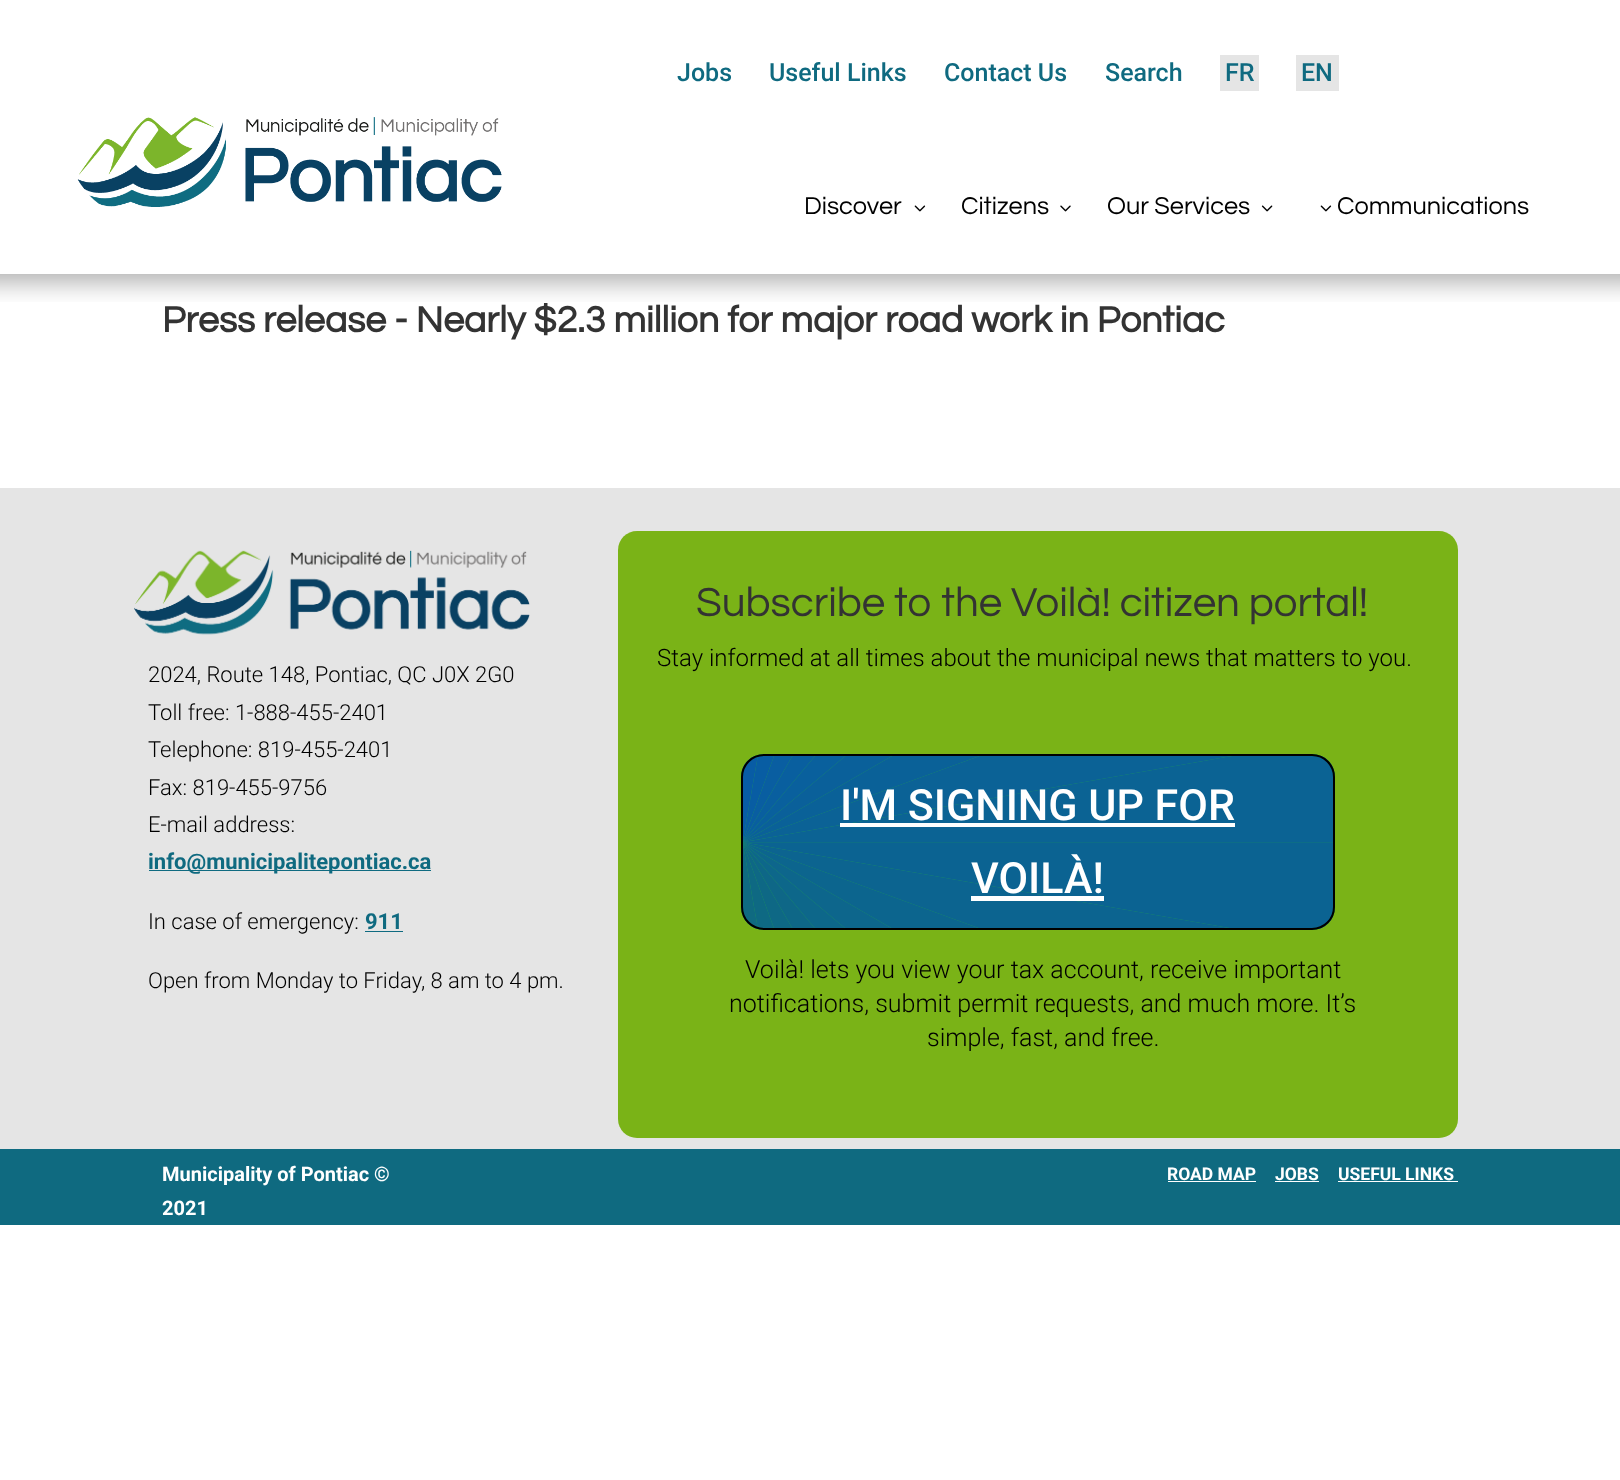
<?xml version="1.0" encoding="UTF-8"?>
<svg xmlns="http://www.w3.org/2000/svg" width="1620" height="1480">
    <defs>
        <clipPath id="clip1"><rect x="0" y="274" width="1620" height="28"/></clipPath>
        <filter id="blur1" x="-50%" y="-200%" width="200%" height="500%"><feGaussianBlur stdDeviation="12.5"/></filter>
    </defs>
    <rect width="100%" height="100%" fill="#FFFFFF"/>
    <text x="677" y="81" font-family="Roboto" font-size="25" font-weight="500" fill="#0F6A80">Jobs</text>
    <text x="769" y="81" font-family="Roboto" font-size="25" font-weight="500" fill="#0F6A80">Useful Links</text>
    <text x="944" y="81" font-family="Roboto" font-size="25" font-weight="500" fill="#0F6A80">Contact Us</text>
    <text x="1105" y="81" font-family="Roboto" font-size="25" font-weight="500" fill="#0F6A80">Search</text>
    <rect x="1220" y="55" width="39" height="36" fill="#E5E5E5"/>
    <text x="1225" y="81" font-family="Roboto" font-size="25" font-weight="500" fill="#0F6A80">FR</text>
    <rect x="1296" y="55" width="43" height="36" fill="#E5E5E5"/>
    <text x="1301" y="81" font-family="Roboto" font-size="25" font-weight="500" fill="#0F6A80">EN</text>
    <g clip-path="url(#clip1)">
        <rect x="-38" y="165" width="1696" height="118" fill="#000000" fill-opacity="0.3" filter="url(#blur1)"/>
    </g>
    <image x="77" y="117" width="425" height="90" href="img_01.png"/>
    <text x="804" y="214" font-family="Questrial" font-size="25.25" fill="#000000">Discover</text>
    <image x="914" y="205" width="12" height="7" href="img_02.png"/>
    <text x="961" y="214" font-family="Questrial" font-size="25.25" fill="#000000">Citizens</text>
    <image x="1060" y="205" width="11" height="7" href="img_03.png"/>
    <text x="1107" y="214" font-family="Questrial" font-size="25.25" fill="#000000">Our Services</text>
    <image x="1261" y="205" width="12" height="7" href="img_04.png"/>
    <image x="1320" y="205" width="12" height="7" href="img_02.png"/>
    <text x="1337" y="214" font-family="Questrial" font-size="25.25" fill="#000000">Communications</text>
    <text x="162" y="332" font-family="Questrial" font-size="37.5" font-weight="700" fill="#333333">Press release - Nearly $2.3 million for major road work in Pontiac</text>
    <rect x="0" y="488" width="1620" height="661" fill="#E5E5E5"/>
    <image x="134" y="550" width="396" height="85" href="img_05.png"/>
    <text font-family="Roboto" font-size="22" font-weight="300" fill="#000000">
        <tspan x="148" y="682">2024, Route 148, Pontiac, QC J0X 2G0</tspan>
        <tspan x="148" y="720">Toll free: 1-888-455-2401</tspan>
        <tspan x="148" y="757">Telephone: 819-455-2401</tspan>
        <tspan x="148" y="795">Fax: 819-455-9756</tspan>
        <tspan x="148" y="832">E-mail address:</tspan>
    </text>
    <rect x="149" y="870" width="282" height="1" fill="#0F6A80"/>
    <text x="148" y="869" font-family="Roboto" font-size="22" font-weight="700" fill="#0F6A80">info@municipalitepontiac.ca</text>
    <text x="148" y="929" font-family="Roboto" font-size="22" font-weight="300" fill="#000000">In case of emergency:</text>
    <text x="365" y="929" font-family="Roboto" font-size="22" font-weight="700" fill="#0F6A80">911</text>
    <rect x="365" y="931" width="38" height="1" fill="#0F6A80"/>
    <text x="148" y="988" font-family="Roboto" font-size="22" font-weight="300" fill="#000000">Open from Monday to Friday, 8 am to 4 pm.</text>
    <rect x="618" y="531" width="840" height="607" rx="19" fill="#7AB317"/>
    <text x="696" y="616" font-family="Questrial" font-size="42" fill="#333333">Subscribe to the Voilà! citizen portal!</text>
    <text x="657" y="666" font-family="Roboto" font-size="24" font-weight="300" fill="#000000">Stay informed at all times about the municipal news that matters to you.</text>
    <rect x="741" y="754" width="594" height="176" rx="23" fill="#1EA44F"/>
    <image x="743" y="756" width="590" height="173" href="img_06.png"/>
    <rect x="742" y="755" width="592" height="174" rx="22" fill="none" stroke="#000000" stroke-width="2"/>
    <text x="840" y="820" font-family="Roboto" font-size="43" font-weight="500" fill="#FFFFFF">I'M SIGNING UP FOR</text>
    <rect x="840" y="823" width="395" height="4" fill="#FFFFFF"/>
    <text x="971" y="893" font-family="Roboto" font-size="43" font-weight="500" fill="#FFFFFF">VOILÀ!</text>
    <rect x="971" y="896" width="133" height="5" fill="#FFFFFF"/>
    <text x="745" y="978" font-family="Roboto" font-size="25" font-weight="300" fill="#000000">Voilà! lets you view your tax account, receive important</text>
    <text x="729" y="1012" font-family="Roboto" font-size="25" font-weight="300" fill="#000000">notifications, submit permit requests, and much more. It’s</text>
    <text x="927" y="1046" font-family="Roboto" font-size="25" font-weight="300" fill="#000000">simple, fast, and free.</text>
    <rect x="0" y="1149" width="1620" height="76" fill="#0F6A80"/>
    <text font-family="Roboto" font-size="20" font-weight="700" fill="#FFFFFF">
        <tspan x="162" y="1181">Municipality of Pontiac ©</tspan>
        <tspan x="162" y="1215">2021</tspan>
    </text>
    <text x="1167" y="1180" font-family="Roboto" font-size="17.5" font-weight="700" fill="#FFFFFF">ROAD MAP</text>
    <rect x="1168" y="1181" width="88" height="1" fill="#FFFFFF"/>
    <text x="1275" y="1180" font-family="Roboto" font-size="17.5" font-weight="700" fill="#FFFFFF">JOBS</text>
    <rect x="1275" y="1181" width="44" height="1" fill="#FFFFFF"/>
    <text x="1338" y="1180" font-family="Roboto" font-size="17.5" font-weight="700" fill="#FFFFFF">USEFUL LINKS</text>
    <rect x="1338" y="1181" width="120" height="1" fill="#FFFFFF"/>
</svg>
